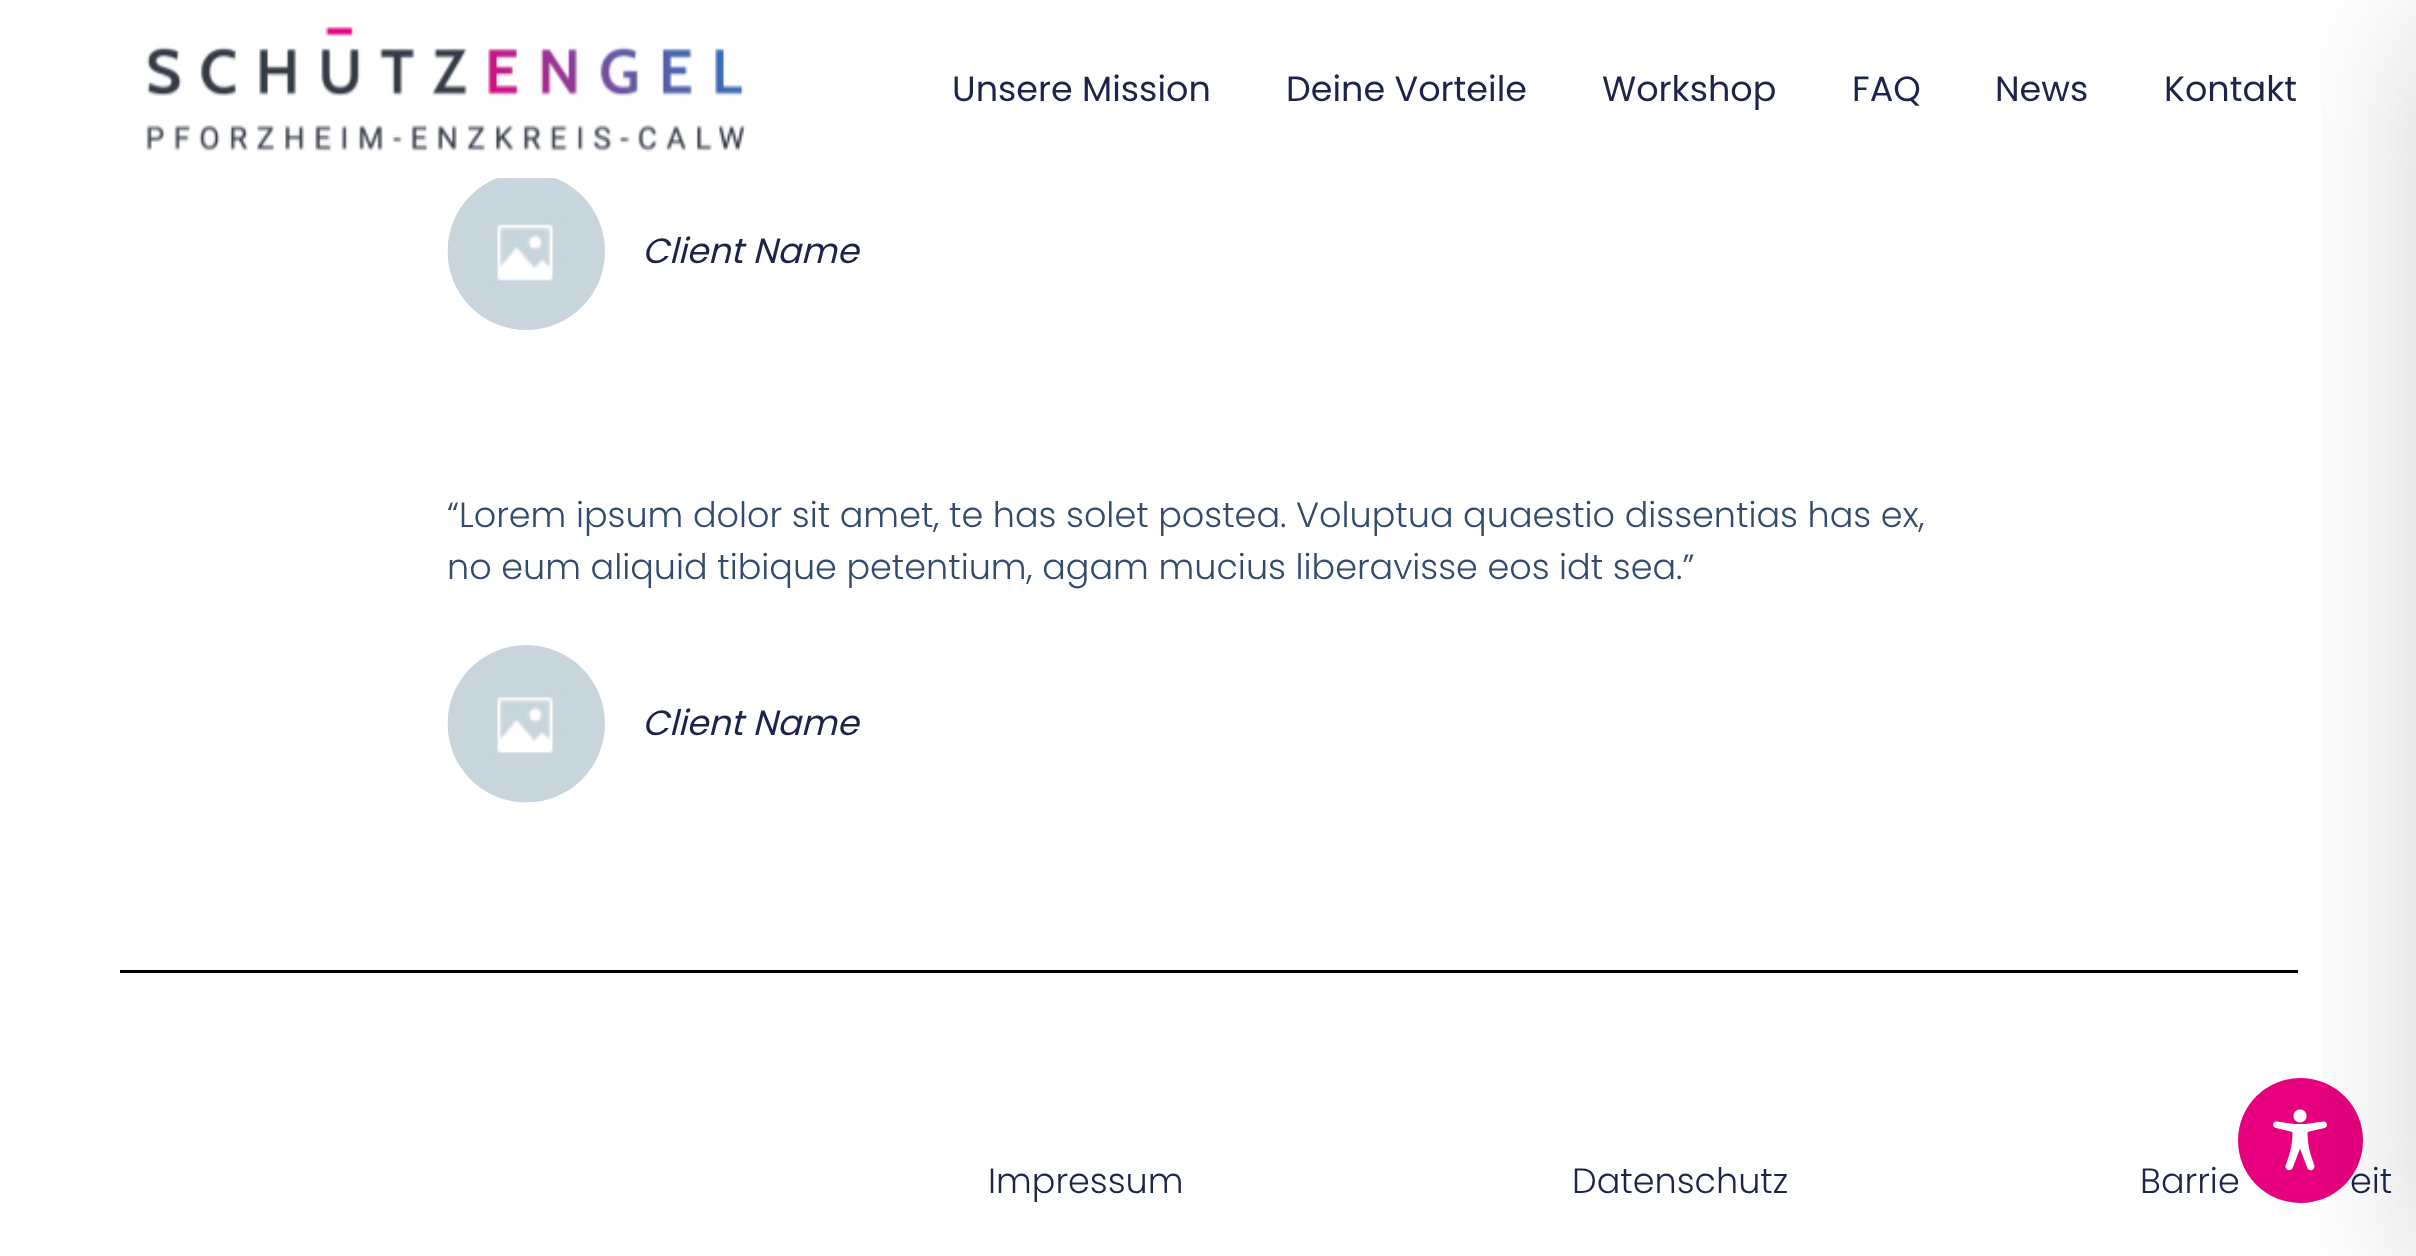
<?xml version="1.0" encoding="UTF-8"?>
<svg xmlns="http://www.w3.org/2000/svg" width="2416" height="1256">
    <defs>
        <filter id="blur1" x="-50%" y="-200%" width="200%" height="500%"><feGaussianBlur stdDeviation="75"/></filter>
    </defs>
    <rect width="100%" height="100%" fill="#FFFFFF"/>
    <image x="146" y="26" width="600" height="126" href="img_01.png"/>
    <text x="952" y="101" font-family="Poppins" font-size="35" fill="#1C244B">Unsere Mission</text>
    <text x="1286" y="101" font-family="Poppins" font-size="35" fill="#1C244B">Deine Vorteile</text>
    <text x="1602" y="101" font-family="Poppins" font-size="35" fill="#1C244B">Workshop</text>
    <text x="1852" y="101" font-family="Poppins" font-size="35" fill="#1C244B">FAQ</text>
    <text x="1995" y="101" font-family="Poppins" font-size="35" fill="#1C244B">News</text>
    <text x="2164" y="101" font-family="Poppins" font-size="35" fill="#1C244B">Kontakt</text>
    <text x="2140" y="1193" font-family="Poppins" font-size="35" font-weight="300" fill="#1C244B">Barrie</text>
    <text x="2350" y="1193" font-family="Poppins" font-size="35" font-weight="300" fill="#1C244B">eit</text>
    <circle cx="2300.5" cy="1140.5" r="62.5" fill="#E6007E"/>
    <image x="2273" y="1109" width="54" height="62" href="img_04.png"/>
    <rect x="120" y="970" width="2178" height="3" fill="#000000"/>
    <rect x="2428" y="25" width="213" height="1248" fill="#000000" fill-opacity="0.2" filter="url(#blur1)"/>
    <image x="447" y="178" width="158" height="152" href="img_02.png"/>
    <text x="642" y="263" font-family="Poppins" font-size="35" font-style="italic" fill="#1C244B">Client Name</text>
    <text font-family="Poppins" font-size="35" font-weight="300" fill="#324A6D">
        <tspan x="447" y="527">“Lorem ipsum dolor sit amet, te has solet postea. Voluptua quaestio dissentias has ex,</tspan>
        <tspan x="447" y="579">no eum aliquid tibique petentium, agam mucius liberavisse eos idt sea.”</tspan>
    </text>
    <image x="447" y="645" width="158" height="158" href="img_03.png"/>
    <text x="642" y="735" font-family="Poppins" font-size="35" font-style="italic" fill="#1C244B">Client Name</text>
    <text x="988" y="1193" font-family="Poppins" font-size="35" font-weight="300" fill="#1C244B">Impressum</text>
    <text x="1572" y="1193" font-family="Poppins" font-size="35" font-weight="300" fill="#1C244B">Datenschutz</text>
</svg>
